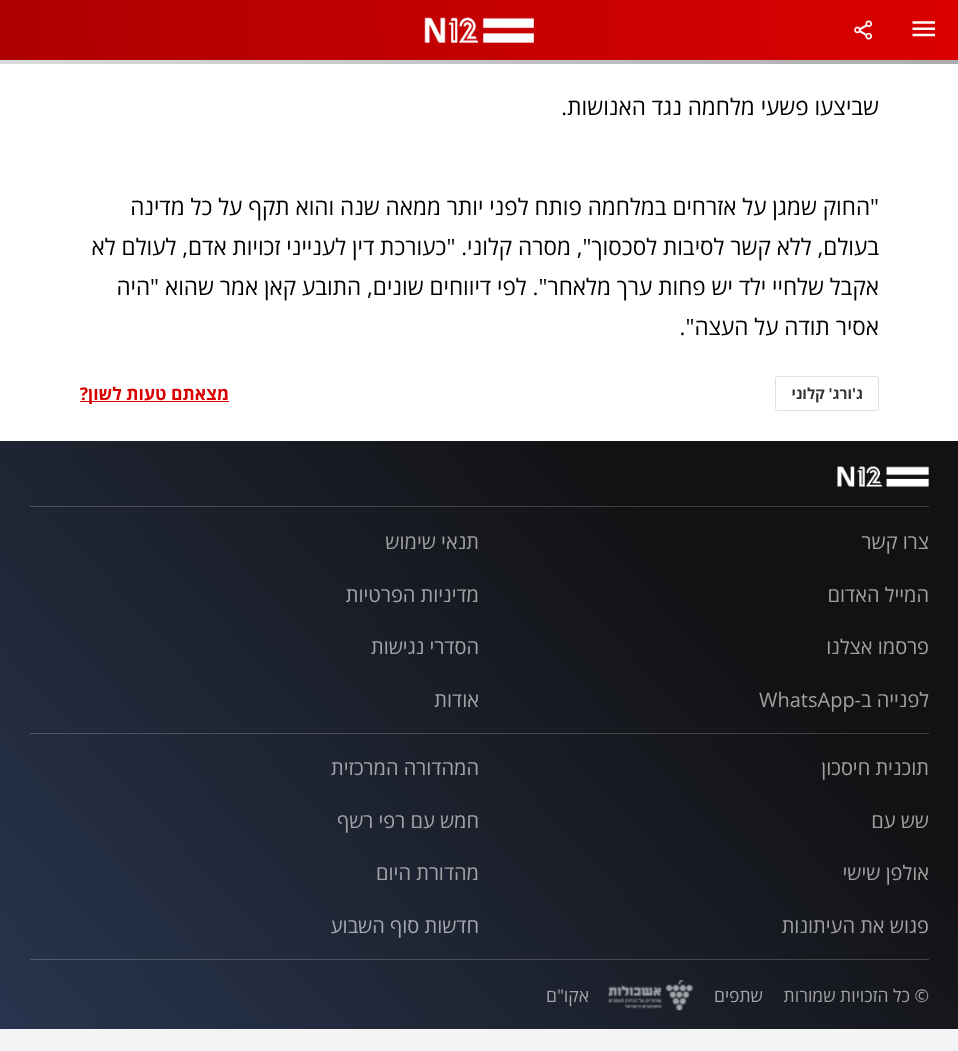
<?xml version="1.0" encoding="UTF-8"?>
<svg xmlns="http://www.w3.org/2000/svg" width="958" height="1051">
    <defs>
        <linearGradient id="g1" gradientUnits="userSpaceOnUse" x1="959" y1="13" x2="-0.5" y2="47"><stop offset="0" stop-color="#DB0000"/><stop offset="1" stop-color="#AE0000"/></linearGradient>
        <linearGradient id="g2" gradientUnits="userSpaceOnUse" x1="0" y1="62" x2="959" y2="62"><stop offset="0" stop-color="#D9DADB"/><stop offset="1" stop-color="#AAACAF"/></linearGradient>
        <linearGradient id="g3" gradientUnits="userSpaceOnUse" x1="-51" y1="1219" x2="887" y2="363"><stop offset="0" stop-color="#2D3C5A"/><stop offset="0.78" stop-color="#121214"/></linearGradient>
        <linearGradient id="g4" gradientUnits="userSpaceOnUse" x1="-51" y1="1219" x2="887" y2="363"><stop offset="0" stop-color="#57637B"/><stop offset="0.78" stop-color="#414143"/></linearGradient>
    </defs>
    <rect width="100%" height="100%" fill="#F4F4F4"/>
    <rect x="0" y="0" width="958" height="60" fill="url(#g1)"/>
    <image x="912" y="21" width="23" height="16" href="img_01.png"/>
    <image x="854" y="20" width="18" height="20" href="img_02.png"/>
    <image x="424" y="17" width="110" height="26" href="img_03.png"/>
    <rect x="0" y="60" width="958" height="4" fill="url(#g2)"/>
    <rect x="0" y="64" width="958" height="377" fill="#FFFFFF"/>
    <text x="879" y="115" font-family="Open Sans" font-size="22.5" direction="rtl" fill="#000000">שביצעו פשעי מלחמה נגד האנושות.</text>
    <text font-family="Open Sans" font-size="22.5" direction="rtl" fill="#000000">
        <tspan x="879" y="215">"החוק שמגן על אזרחים במלחמה פותח לפני יותר ממאה שנה והוא תקף על כל מדינה</tspan>
        <tspan x="879" y="255">בעולם, ללא קשר לסיבות לסכסוך", מסרה קלוני. "כעורכת דין לענייני זכויות אדם, לעולם לא</tspan>
        <tspan x="879" y="295">אקבל שלחיי ילד יש פחות ערך מלאחר". לפי דיווחים שונים, התובע קאן אמר שהוא "היה</tspan>
        <tspan x="879" y="335">אסיר תודה על העצה".</tspan>
    </text>
    <rect x="775.5" y="376.5" width="103" height="34" rx="2" fill="none" stroke="#E0E0E0"/>
    <text x="863" y="399" font-family="Open Sans" font-size="15" font-weight="700" direction="rtl" fill="#333538">ג'ורג' קלוני</text>
    <rect x="80" y="401" width="149" height="1" fill="#DB0000"/>
    <text x="229" y="400" font-family="Open Sans" font-size="17.5" font-weight="700" direction="rtl" fill="#DB0000">מצאתם טעות לשון?</text>
    <rect x="0" y="441" width="958" height="588" fill="url(#g3)"/>
    <rect x="30" y="959" width="899" height="1" fill="url(#g4)"/>
    <rect x="30" y="733" width="899" height="1" fill="url(#g4)"/>
    <rect x="30" y="506" width="899" height="1" fill="url(#g4)"/>
    <image x="837" y="466" width="92" height="21" href="img_04.png"/>
    <text x="929" y="549" font-family="Open Sans" font-size="20" direction="rtl" fill="#A0A0A1">צרו קשר</text>
    <text x="929" y="602" font-family="Open Sans" font-size="20" direction="rtl" fill="#A0A0A1">המייל האדום</text>
    <text x="929" y="654" font-family="Open Sans" font-size="20" direction="rtl" fill="#A0A0A1">פרסמו אצלנו</text>
    <text x="929" y="707" font-family="Open Sans" font-size="20" direction="rtl" fill="#A0A0A1">לפנייה ב-</text>
    <text x="759" y="707" font-family="Open Sans" font-size="20" fill="#A0A0A1">WhatsApp</text>
    <text x="479" y="549" font-family="Open Sans" font-size="20" direction="rtl" fill="#A0A0A1">תנאי שימוש</text>
    <text x="479" y="602" font-family="Open Sans" font-size="20" direction="rtl" fill="#A3A4A7">מדיניות הפרטיות</text>
    <text x="479" y="654" font-family="Open Sans" font-size="20" direction="rtl" fill="#A3A4A7">הסדרי נגישות</text>
    <text x="479" y="707" font-family="Open Sans" font-size="20" direction="rtl" fill="#A3A4A7">אודות</text>
    <text x="929" y="775" font-family="Open Sans" font-size="20" direction="rtl" fill="#A0A0A1">תוכנית חיסכון</text>
    <text x="929" y="828" font-family="Open Sans" font-size="20" direction="rtl" fill="#A0A0A1">שש עם</text>
    <text x="929" y="880" font-family="Open Sans" font-size="20" direction="rtl" fill="#A0A0A1">אולפן שישי</text>
    <text x="929" y="933" font-family="Open Sans" font-size="20" direction="rtl" fill="#A0A0A1">פגוש את העיתונות</text>
    <text x="479" y="775" font-family="Open Sans" font-size="20" direction="rtl" fill="#A3A4A7">המהדורה המרכזית</text>
    <text x="479" y="828" font-family="Open Sans" font-size="20" direction="rtl" fill="#A3A4A7">חמש עם רפי רשף</text>
    <text x="479" y="880" font-family="Open Sans" font-size="20" direction="rtl" fill="#A3A4A7">מהדורת היום</text>
    <text x="479" y="933" font-family="Open Sans" font-size="20" direction="rtl" fill="#A5A8AE">חדשות סוף השבוע</text>
    <text x="929" y="1002" font-family="Open Sans" font-size="17.5" direction="rtl" fill="#A0A0A1">© כל הזכויות שמורות</text>
    <text x="763" y="1002" font-family="Open Sans" font-size="17.5" direction="rtl" fill="#A3A4A7">שתפים</text>
    <image x="608" y="980" width="85" height="31" href="img_05.png"/>
    <text x="589" y="1002" font-family="Open Sans" font-size="17.5" direction="rtl" fill="#A3A4A7">אקו"ם</text>
</svg>
